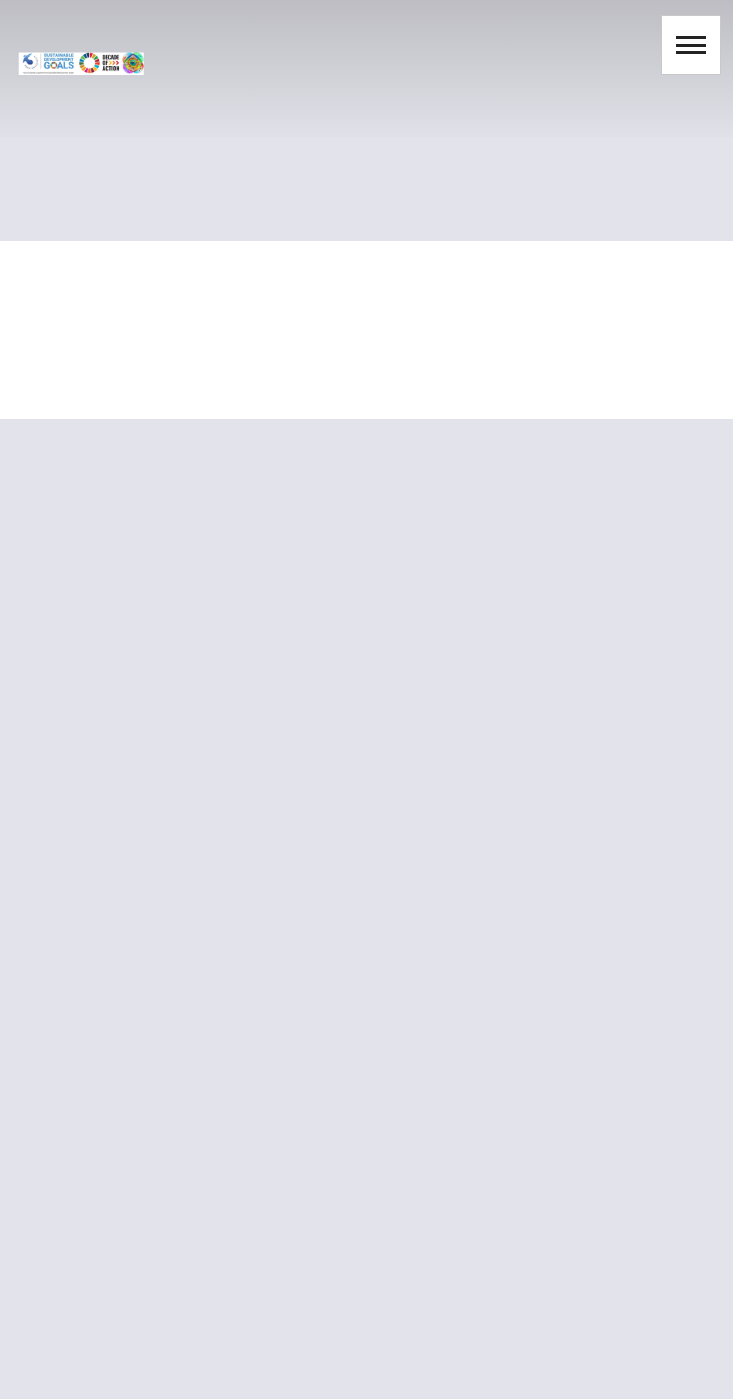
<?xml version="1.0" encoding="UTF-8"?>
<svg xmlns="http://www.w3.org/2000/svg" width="733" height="1399">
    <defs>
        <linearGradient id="g1" gradientUnits="userSpaceOnUse" x1="367" y1="0" x2="367" y2="146"><stop offset="0" stop-color="#BDBDC3"/><stop offset="1" stop-color="#E3E4EB"/></linearGradient>
    </defs>
    <rect width="100%" height="100%" fill="#E3E4EB"/>
    <rect x="0" y="0" width="733" height="137" fill="url(#g1)"/>
    <image x="18" y="52" width="126" height="23" href="img_01.png"/>
    <rect x="661.5" y="15.5" width="59" height="59" fill="#FFFFFF" stroke="#C8C8C8"/>
    <rect x="676" y="36" width="30" height="3" fill="#232323"/>
    <rect x="676" y="44" width="30" height="3" fill="#232323"/>
    <rect x="676" y="51" width="30" height="3" fill="#232323"/>
    <rect x="0" y="241" width="733" height="178" fill="#FFFFFF"/>
</svg>
